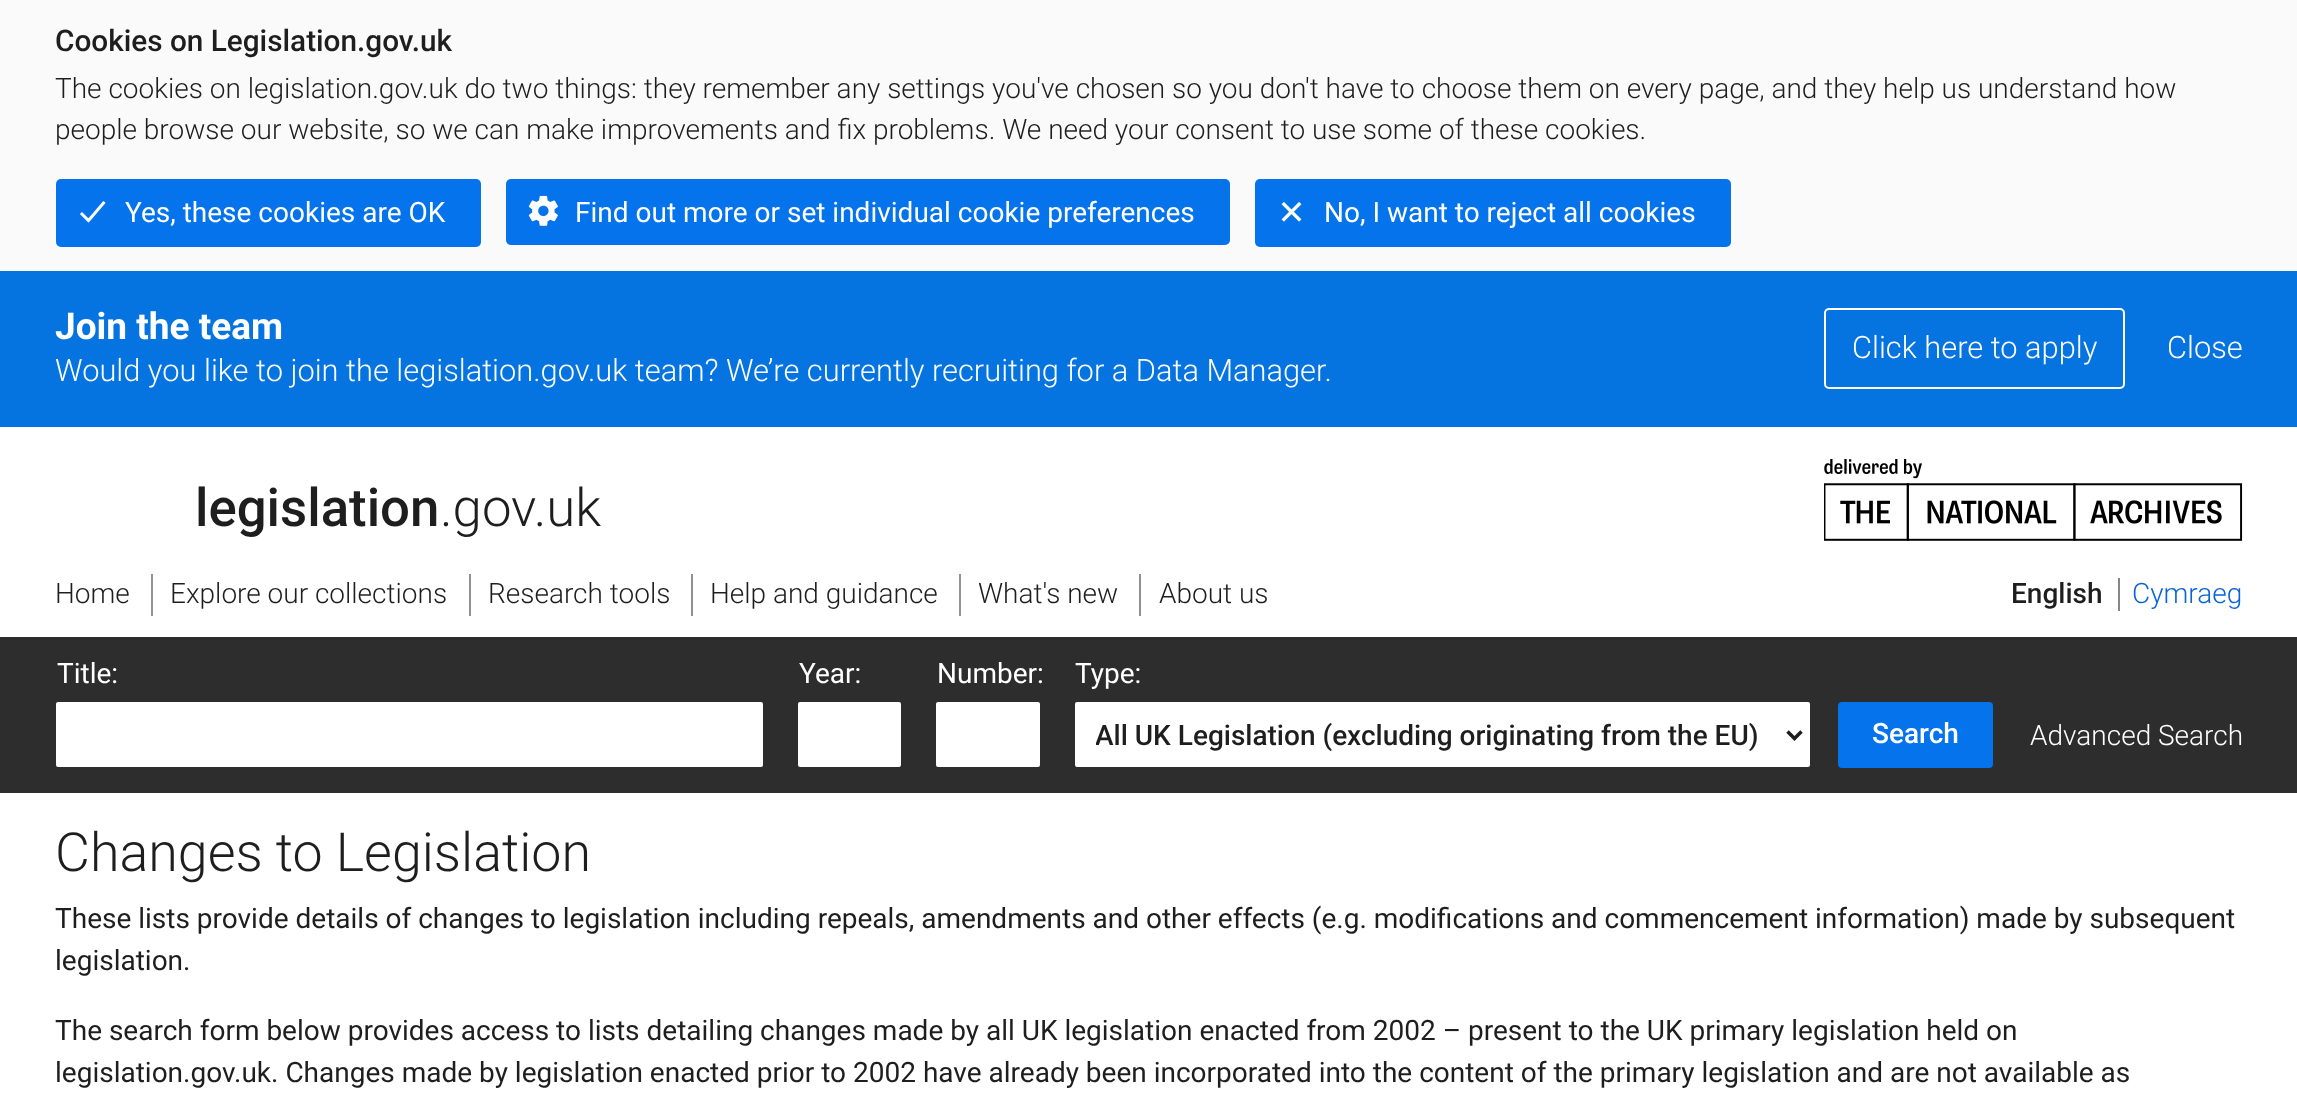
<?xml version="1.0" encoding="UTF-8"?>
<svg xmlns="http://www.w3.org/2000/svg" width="2297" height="1109">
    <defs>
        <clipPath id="clip1"><rect x="1096" y="716" width="672" height="37"/></clipPath>
    </defs>
    <rect width="100%" height="100%" fill="#FFFFFF"/>
    <rect x="0" y="0" width="2297" height="271" fill="#FAFAFA"/>
    <text x="55" y="51" font-family="Roboto" font-size="29.75" font-weight="500" fill="#1E1E1E">Cookies on Legislation.gov.uk</text>
    <text font-family="Roboto" font-size="28" font-weight="300" fill="#1E1E1E">
        <tspan x="55" y="98">The cookies on legislation.gov.uk do two things: they remember any settings you've chosen so you don't have to choose them on every page, and they help us understand how</tspan>
        <tspan x="55" y="139">people browse our website, so we can make improvements and fix problems. We need your consent to use some of these cookies.</tspan>
    </text>
    <rect x="56" y="179" width="425" height="68" rx="5" fill="#0573EB"/>
    <path d="M 103.5 203 L 88.5 220.5 L 82 214" fill="none" stroke="#FFFFFF" stroke-width="3" stroke-linecap="square"/>
    <text x="125" y="222" font-family="Roboto" font-size="28" fill="#FFFFFF">Yes, these cookies are OK</text>
    <rect x="506" y="179" width="724" height="66" rx="5" fill="#0573EB"/>
    <image x="528" y="195" width="30" height="31" href="img_01.png"/>
    <text x="575" y="222" font-family="Roboto" font-size="28" fill="#FFFFFF">Find out more or set individual cookie preferences</text>
    <rect x="1255" y="179" width="476" height="68" rx="5" fill="#0573EB"/>
    <image x="1281" y="201" width="21" height="21" href="img_02.png"/>
    <text x="1324" y="222" font-family="Roboto" font-size="28" fill="#FFFFFF">No, I want to reject all cookies</text>
    <rect x="0" y="271" width="2297" height="156" fill="#0574E0"/>
    <text x="55" y="339" font-family="Roboto" font-size="37" font-weight="700" fill="#FFFFFF">Join the team</text>
    <text x="55" y="381" font-family="Roboto" font-size="30.8" font-weight="300" fill="#FFFFFF">Would you like to join the legislation.gov.uk team? We’re currently recruiting for a Data Manager.</text>
    <rect x="1825" y="309" width="299" height="79" rx="4" fill="none" stroke="#FFFFFF" stroke-width="2"/>
    <text x="1852" y="358" font-family="Roboto" font-size="30.8" font-weight="300" fill="#FFFFFF">Click here to apply</text>
    <text x="2167" y="358" font-family="Roboto" font-size="30.8" font-weight="300" fill="#FFFFFF">Close</text>
    <text x="195" y="526" font-family="Roboto" font-size="52.75" font-weight="500" fill="#1E1E1E">legislation</text>
    <text x="440" y="526" font-family="Roboto" font-size="52.75" font-weight="300" fill="#1E1E1E">.gov.uk</text>
    <image x="1824" y="459" width="419" height="82" href="img_03.png"/>
    <text x="2011" y="603" font-family="Roboto" font-size="28" font-weight="500" fill="#1E1E1E">English</text>
    <text x="2132" y="603" font-family="Roboto" font-size="28" font-weight="300" fill="#0A64D7">Cymraeg</text>
    <rect x="2118" y="578" width="2" height="33" fill="#878787"/>
    <rect x="0" y="637" width="2297" height="156" fill="#2D2D2D"/>
    <text x="55" y="603" font-family="Roboto" font-size="28" font-weight="300" fill="#1E1E1E">Home</text>
    <rect x="151" y="574" width="2" height="42" fill="#919191"/>
    <text x="170" y="603" font-family="Roboto" font-size="28" font-weight="300" fill="#1E1E1E">Explore our collections</text>
    <rect x="469" y="574" width="2" height="42" fill="#919191"/>
    <text x="488" y="603" font-family="Roboto" font-size="28" font-weight="300" fill="#1E1E1E">Research tools</text>
    <rect x="691" y="574" width="2" height="42" fill="#919191"/>
    <text x="710" y="603" font-family="Roboto" font-size="28" font-weight="300" fill="#1E1E1E">Help and guidance</text>
    <rect x="959" y="574" width="2" height="42" fill="#919191"/>
    <text x="978" y="603" font-family="Roboto" font-size="28" font-weight="300" fill="#1E1E1E">What's new</text>
    <rect x="1139" y="574" width="2" height="42" fill="#919191"/>
    <text x="1159" y="603" font-family="Roboto" font-size="28" font-weight="300" fill="#1E1E1E">About us</text>
    <text x="57" y="683" font-family="Roboto" font-size="28" fill="#FFFFFF">Title:</text>
    <rect x="56" y="702" width="707" height="65" rx="2" fill="#FFFFFF"/>
    <text x="799" y="683" font-family="Roboto" font-size="28" fill="#FFFFFF">Year:</text>
    <rect x="798" y="702" width="103" height="65" rx="2" fill="#FFFFFF"/>
    <text x="937" y="683" font-family="Roboto" font-size="28" fill="#FFFFFF">Number:</text>
    <rect x="936" y="702" width="104" height="65" rx="2" fill="#FFFFFF"/>
    <text x="1075" y="683" font-family="Roboto" font-size="28" fill="#FFFFFF">Type:</text>
    <rect x="1075" y="702" width="735" height="65" rx="2" fill="#FFFFFF"/>
    <path d="M 1787.5 731.5 L 1794.5 738.5 L 1801.5 731.5" fill="none" stroke="#1E1E1E" stroke-width="3.5"/>
    <g clip-path="url(#clip1)">
        <text x="1095" y="745" font-family="Roboto" font-size="28" font-weight="500" fill="#1E1E1E">All UK Legislation (excluding originating from the EU)</text>
    </g>
    <rect x="1838" y="702" width="155" height="66" rx="4" fill="#0573EB"/>
    <text x="1872" y="743" font-family="Roboto" font-size="28" font-weight="500" fill="#FFFFFF">Search</text>
    <text x="2030" y="745" font-family="Roboto" font-size="28" font-weight="300" fill="#FFFFFF">Advanced Search</text>
    <text x="55" y="871" font-family="Roboto" font-size="53.75" font-weight="300" fill="#1E1E1E">Changes to Legislation</text>
    <text font-family="Roboto" font-size="28" fill="#1E1E1E">
        <tspan x="55" y="928">These lists provide details of changes to legislation including repeals, amendments and other effects (e.g. modifications and commencement information) made by subsequent</tspan>
        <tspan x="55" y="970">legislation.</tspan>
    </text>
    <text font-family="Roboto" font-size="28" fill="#1E1E1E">
        <tspan x="55" y="1040">The search form below provides access to lists detailing changes made by all UK legislation enacted from 2002 – present to the UK primary legislation held on</tspan>
        <tspan x="55" y="1082">legislation.gov.uk. Changes made by legislation enacted prior to 2002 have already been incorporated into the content of the primary legislation and are not available as</tspan>
    </text>
</svg>
